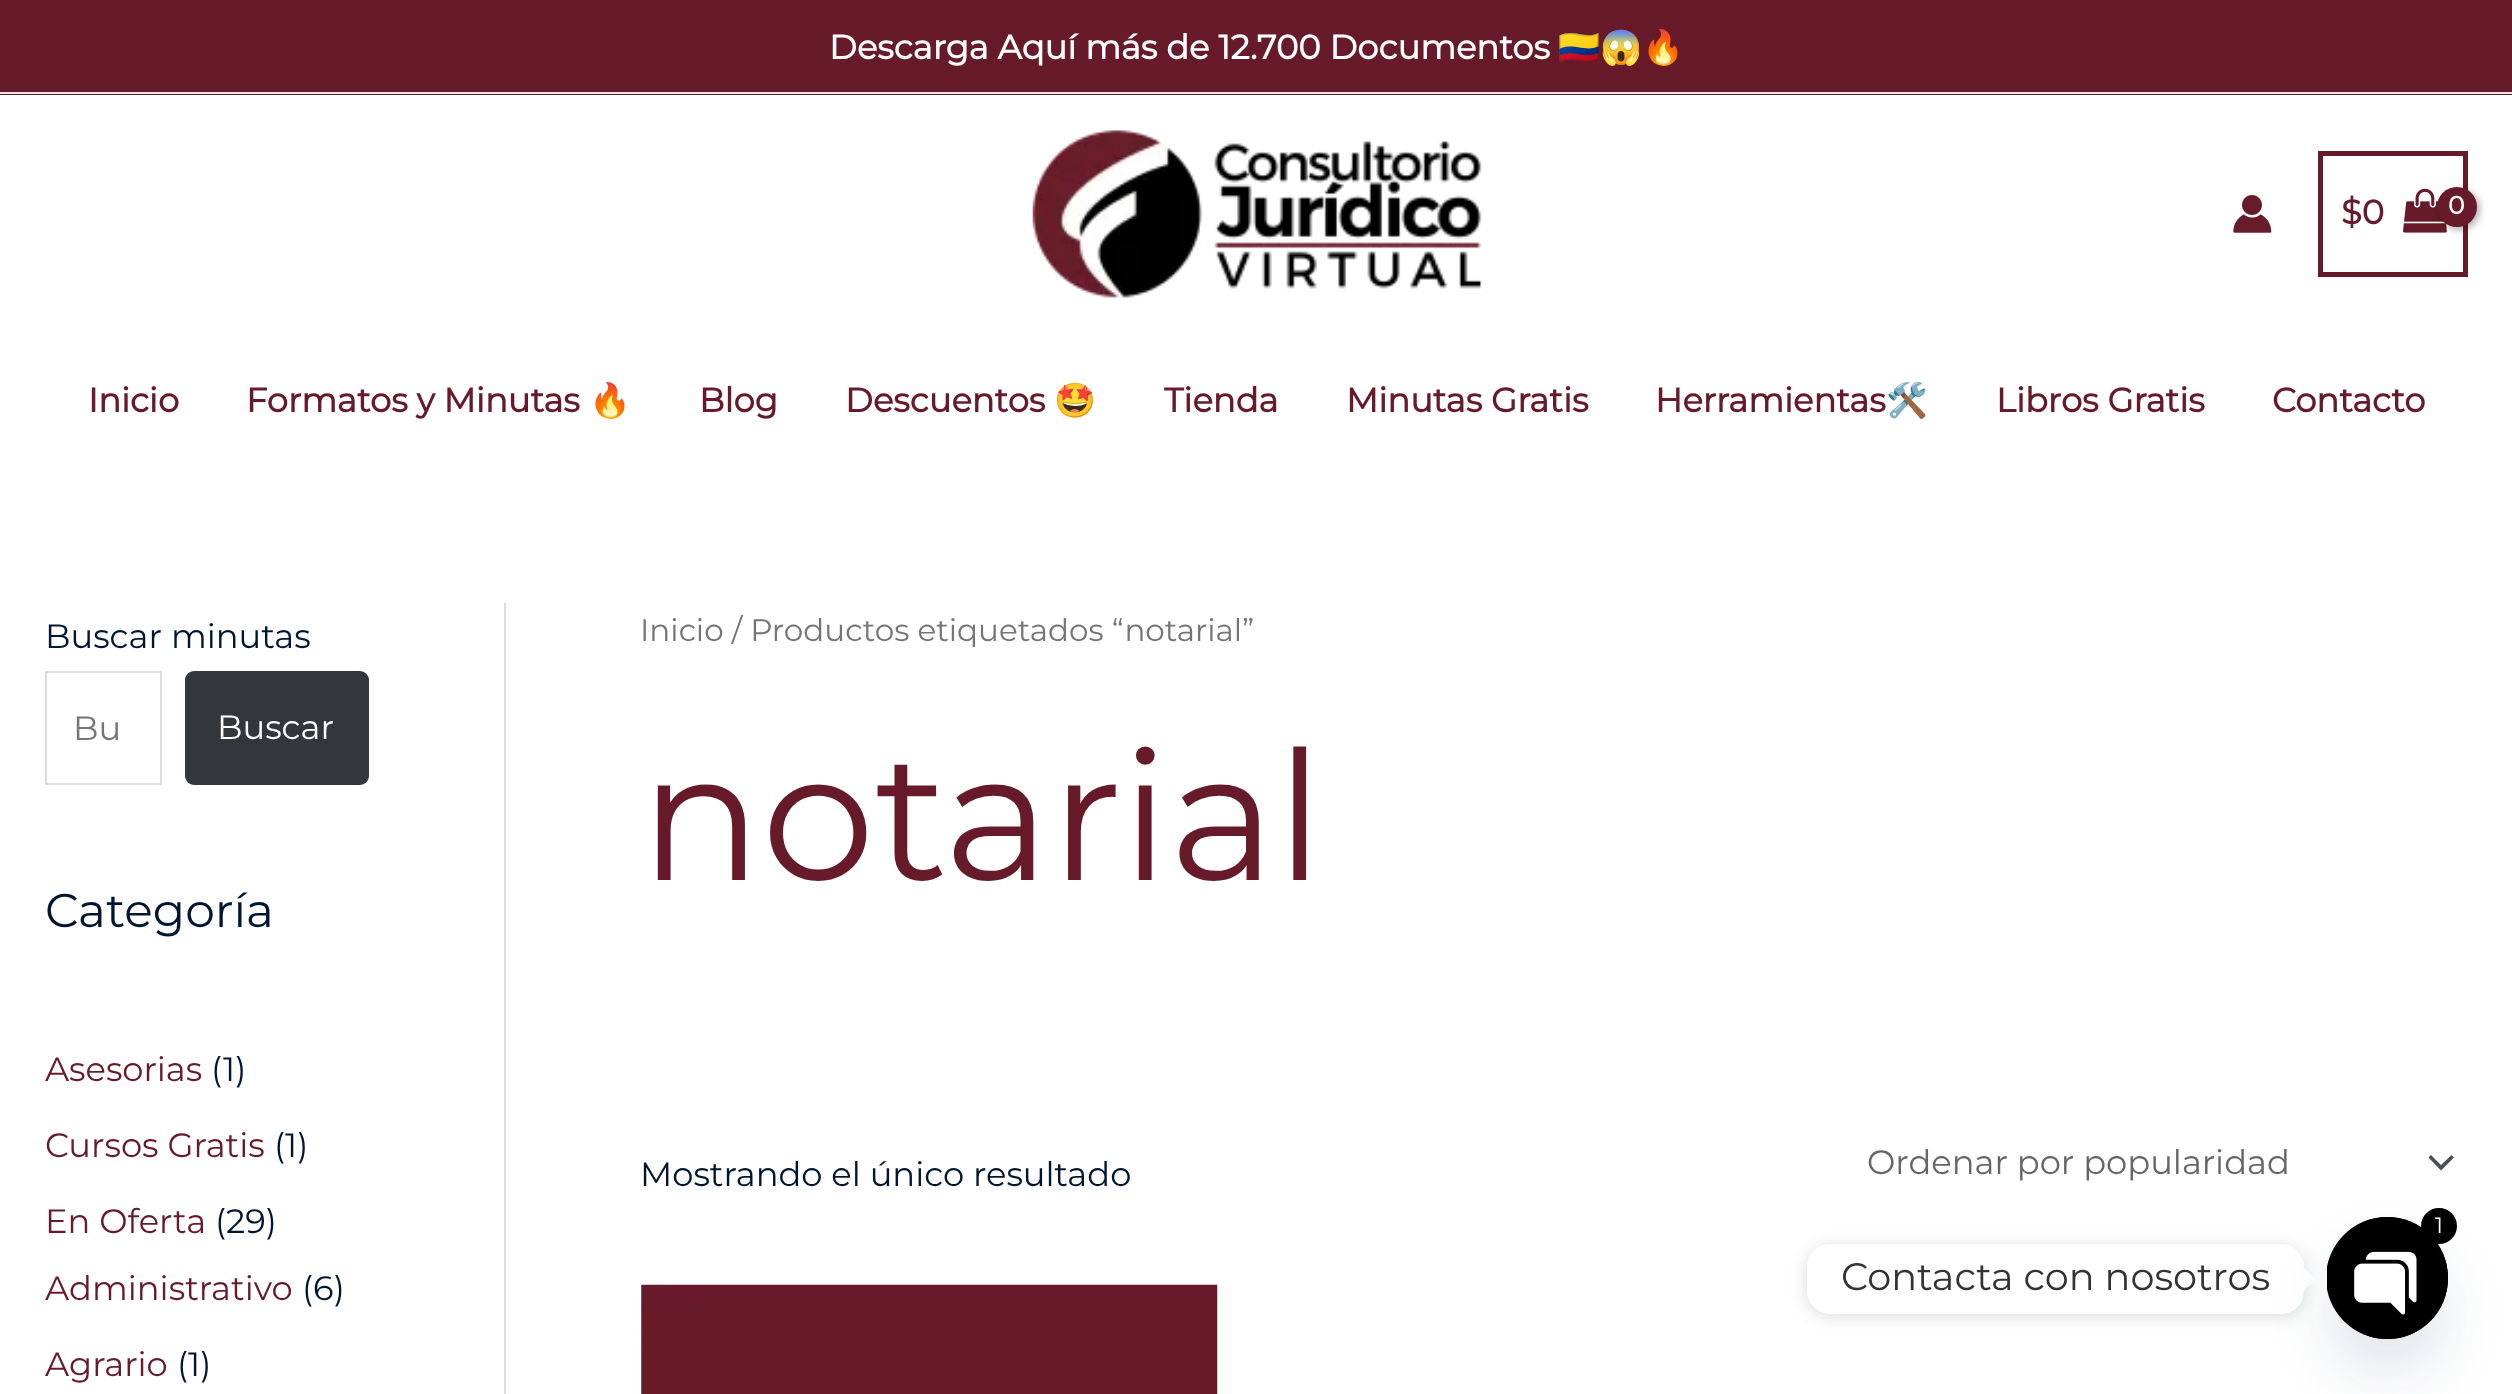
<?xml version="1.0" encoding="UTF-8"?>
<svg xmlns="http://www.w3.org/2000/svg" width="2512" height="1394">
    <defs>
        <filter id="blur1" x="-50%" y="-200%" width="200%" height="500%"><feGaussianBlur stdDeviation="3.5"/></filter>
        <filter id="blur2" x="-50%" y="-200%" width="200%" height="500%"><feGaussianBlur stdDeviation="8.5"/></filter>
        <filter id="blur3" x="-50%" y="-200%" width="200%" height="500%"><feGaussianBlur stdDeviation="27"/></filter>
    </defs>
    <rect width="100%" height="100%" fill="#FFFFFF"/>
    <rect x="0" y="0" width="2512" height="95" fill="#671A2A"/>
    <rect x="0" y="92" width="2512" height="2" fill="#E5E5E5"/>
    <text x="829" y="59" font-family="Montserrat" font-size="33.75" font-weight="700" fill="#FFFFFF">Descarga Aquí más de 12.700 Documentos</text>
    <text x="1558" y="59" font-family="Noto Color Emoji" font-size="33.75" font-weight="700" fill="#FFFFFF">🇨🇴😱🔥</text>
    <image x="1032" y="130" width="450" height="168" href="img_01.png"/>
    <image x="2233" y="195" width="39" height="38" href="img_02.png"/>
    <rect x="2320.5" y="153.5" width="145" height="121" fill="none" stroke="#671A2A" stroke-width="5"/>
    <text x="2341" y="224" font-family="Montserrat" font-size="33.75" font-weight="700" fill="#671A2A">$0</text>
    <image x="2403" y="188" width="44" height="45" href="img_03.png"/>
    <rect x="2439" y="189" width="41" height="41" rx="20.5" fill="#000000" fill-opacity="0.3" filter="url(#blur1)"/>
    <circle cx="2457" cy="207" r="20" fill="#671A2A"/>
    <text x="2448" y="214" font-family="Montserrat" font-size="25" font-weight="700" letter-spacing="-1" fill="#FFFFFF">0</text>
    <text x="88" y="412" font-family="Montserrat" font-size="33.75" font-weight="700" fill="#671A2A">Inicio</text>
    <text x="246" y="412" font-family="Montserrat" font-size="33.75" font-weight="700" fill="#671A2A">Formatos y Minutas</text>
    <text x="589" y="412" font-family="Noto Color Emoji" font-size="33.75" font-weight="700" fill="#671A2A">🔥</text>
    <text x="699" y="412" font-family="Montserrat" font-size="33.75" font-weight="700" fill="#671A2A">Blog</text>
    <text x="845" y="412" font-family="Montserrat" font-size="33.75" font-weight="700" fill="#671A2A">Descuentos</text>
    <text x="1054" y="412" font-family="Noto Color Emoji" font-size="33.75" font-weight="700" fill="#671A2A">🤩</text>
    <text x="1164" y="412" font-family="Montserrat" font-size="33.75" font-weight="700" fill="#671A2A">Tienda</text>
    <text x="1346" y="412" font-family="Montserrat" font-size="33.75" font-weight="700" fill="#671A2A">Minutas Gratis</text>
    <text x="1655" y="412" font-family="Montserrat" font-size="33.75" font-weight="700" fill="#671A2A">Herramientas</text>
    <text x="1886" y="412" font-family="Noto Color Emoji" font-size="33.75" font-weight="700" fill="#671A2A">🛠️</text>
    <text x="1996" y="412" font-family="Montserrat" font-size="33.75" font-weight="700" fill="#671A2A">Libros Gratis</text>
    <text x="2272" y="412" font-family="Montserrat" font-size="33.75" font-weight="700" fill="#671A2A">Contacto</text>
    <rect x="504" y="603" width="2" height="791" fill="#DDDDDD"/>
    <text x="45" y="648" font-family="Montserrat" font-size="33.75" font-weight="100" fill="#001530">Buscar minutas</text>
    <rect x="46" y="672" width="115" height="112" fill="none" stroke="#DDDDDD" stroke-width="2"/>
    <text x="73" y="740" font-family="Montserrat" font-size="33.75" font-weight="100" fill="#757575">Bu</text>
    <rect x="185" y="671" width="184" height="114" rx="9" fill="#32373C"/>
    <text x="217" y="739" font-family="Montserrat" font-size="33.75" font-weight="100" fill="#FFFFFF">Buscar</text>
    <text x="45" y="927" font-family="Montserrat" font-size="47.25" font-weight="100" fill="#001530">Categoría</text>
    <text x="45" y="1081" font-family="Montserrat" font-size="33.75" font-weight="100" fill="#671A2A">Asesorias</text>
    <text x="211" y="1081" font-family="Montserrat" font-size="33.75" font-weight="100" fill="#001530">(</text>
    <text x="223" y="1081" font-family="Montserrat" font-size="33.75" font-weight="100" fill="#001530">1)</text>
    <text x="45" y="1157" font-family="Montserrat" font-size="33.75" font-weight="100" fill="#671A2A">Cursos Gratis</text>
    <text x="274" y="1157" font-family="Montserrat" font-size="33.75" font-weight="100" fill="#001530">(</text>
    <text x="285" y="1157" font-family="Montserrat" font-size="33.75" font-weight="100" fill="#001530">1)</text>
    <text x="45" y="1233" font-family="Montserrat" font-size="33.75" font-weight="100" fill="#671A2A">En Oferta</text>
    <text x="215" y="1233" font-family="Montserrat" font-size="33.75" font-weight="100" fill="#001530">(29)</text>
    <text x="45" y="1300" font-family="Montserrat" font-size="33.75" font-weight="100" fill="#671A2A">Administrativo</text>
    <text x="302" y="1300" font-family="Montserrat" font-size="33.75" font-weight="100" fill="#001530">(6)</text>
    <text x="45" y="1376" font-family="Montserrat" font-size="33.75" font-weight="100" fill="#671A2A">Agrario</text>
    <text x="177" y="1376" font-family="Montserrat" font-size="33.75" font-weight="100" fill="#001530">(</text>
    <text x="188" y="1376" font-family="Montserrat" font-size="33.75" font-weight="100" fill="#001530">1)</text>
    <text x="640" y="641" font-family="Montserrat" font-size="31" font-weight="100" fill="#757575">Inicio / Productos etiquetados “notarial”</text>
    <text x="640" y="880" font-family="Montserrat" font-size="180" font-weight="100" fill="#671A2A">notarial</text>
    <text x="640" y="1186" font-family="Montserrat" font-size="33.75" font-weight="100" fill="#001530">Mostrando el único resultado</text>
    <path d="M 2428.5 1157.5 L 2441 1170.5 L 2454 1157.5 L 2451.5 1155 L 2441 1165 L 2431 1155 Z" fill="#4B4F58"/>
    <text x="1867" y="1174" font-family="Montserrat" font-size="33.75" font-weight="100" fill="#666666">Ordenar por popularidad</text>
    <image x="641" y="1284" width="577" height="110" href="img_04.png"/>
    <rect x="1807" y="1247" width="497" height="69" rx="23" fill="#000000" fill-opacity="0.15" filter="url(#blur2)"/>
    <rect x="1807" y="1244" width="497" height="70" rx="23" fill="#FFFFFF"/>
    <path d="M 2304 1290.5 V 1268 L 2315 1279 Z" fill="#FFFFFF"/>
    <rect x="2327" y="1253" width="121" height="122" rx="60.5" fill="#49687E" fill-opacity="0.16" filter="url(#blur3)"/>
    <rect x="2327" y="1217" width="121" height="122" rx="60.5" fill="#000000"/>
    <image x="2327" y="1217" width="121" height="122" href="img_05.png"/>
    <circle cx="2439" cy="1226" r="18" fill="#000000"/>
    <text x="2435" y="1233" font-family="Montserrat" font-size="22" font-weight="100" fill="#FFFFFF">1</text>
    <text x="1841" y="1290" font-family="Montserrat" font-size="38.25" font-weight="100" fill="#333333">Contacta con nosotros</text>
</svg>
